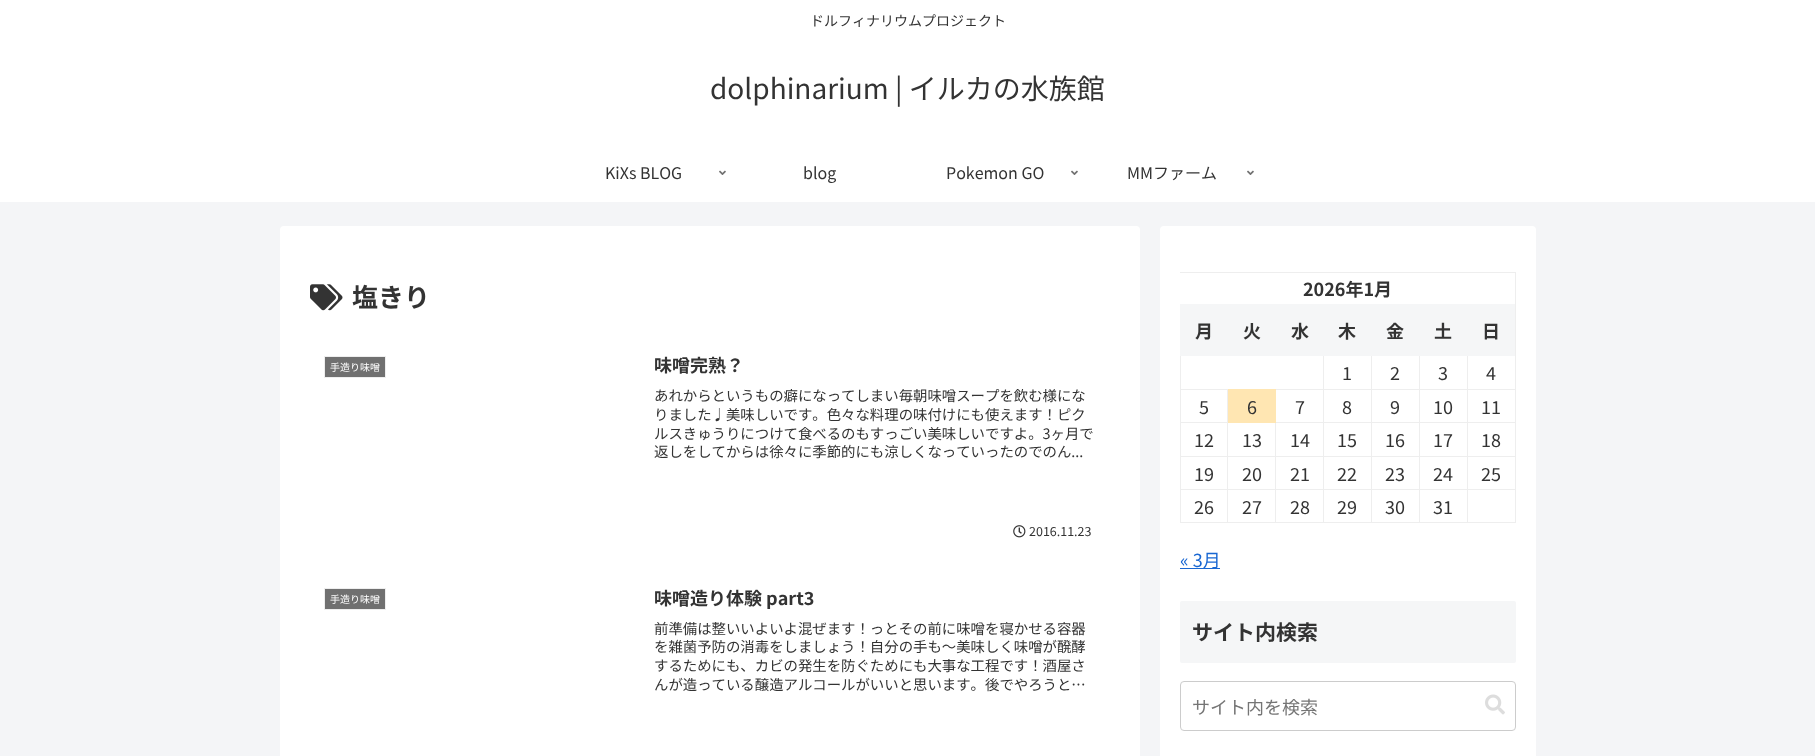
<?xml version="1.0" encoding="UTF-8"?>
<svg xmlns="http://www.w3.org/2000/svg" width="1815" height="756">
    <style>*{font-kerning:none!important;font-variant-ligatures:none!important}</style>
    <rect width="100%" height="100%" fill="#F4F5F7"/>
    <rect x="0" y="0" width="1815" height="202" fill="#FFFFFF"/>
    <text x="810" y="26" font-family="Noto Sans JP" font-size="14" fill="#333333">ドルフィナリウムプロジェクト</text>
    <text x="710" y="99" font-family="Noto Sans JP" font-size="28" fill="#333333">dolphinarium | イルカの水族館</text>
    <text x="605" y="179" font-family="Noto Sans JP" font-size="16" fill="#333333">KiXs BLOG</text>
    <image x="719" y="170" width="7" height="5" href="img_01.png"/>
    <text x="803" y="179" font-family="Noto Sans JP" font-size="16" fill="#333333">blog</text>
    <text x="946" y="179" font-family="Noto Sans JP" font-size="16" fill="#333333">Pokemon GO</text>
    <image x="1071" y="170" width="7" height="5" href="img_01.png"/>
    <text x="1127" y="179" font-family="Noto Sans JP" font-size="16" fill="#333333">MMファーム</text>
    <image x="1247" y="170" width="7" height="5" href="img_01.png"/>
    <rect x="280" y="226" width="860" height="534" rx="4" fill="#FFFFFF"/>
    <image x="310" y="284" width="33" height="27" href="img_02.png"/>
    <text x="352" y="307" font-family="Noto Sans JP" font-size="26" font-weight="700" fill="#333333">塩きり</text>
    <rect x="324.5" y="356.5" width="61" height="21" fill="#707070" stroke="#EEEEEE"/>
    <text x="330" y="371" font-family="Noto Sans JP" font-size="10" fill="#FFFFFF">手造り味噌</text>
    <text x="654" y="372" font-family="Noto Sans JP" font-size="18" font-weight="700" fill="#333333">味噌完熟？</text>
    <text font-family="Noto Sans JP" font-size="14.4" fill="#333333">
        <tspan x="654" y="401">あれからというもの癖になってしまい毎朝味噌スープを飲む様にな</tspan>
        <tspan x="654" y="420">りました♩美味しいです。色々な料理の味付けにも使えます！ピク</tspan>
        <tspan x="654" y="439">ルスきゅうりにつけて食べるのもすっごい美味しいですよ。3ヶ月で</tspan>
        <tspan x="654" y="457">返しをしてからは徐々に季節的にも涼しくなっていったのでのん...</tspan>
    </text>
    <image x="1013" y="525" width="13" height="13" href="img_03.png"/>
    <text x="1029" y="536" font-family="Noto Sans JP" font-size="12.5" fill="#333333">2016.11.23</text>
    <rect x="324.5" y="588.5" width="61" height="21" fill="#707070" stroke="#EEEEEE"/>
    <text x="330" y="603" font-family="Noto Sans JP" font-size="10" fill="#FFFFFF">手造り味噌</text>
    <text x="654" y="605" font-family="Noto Sans JP" font-size="18" font-weight="700" fill="#333333">味噌造り体験 part3</text>
    <text font-family="Noto Sans JP" font-size="14.4" fill="#333333">
        <tspan x="654" y="634">前準備は整いいよいよ混ぜます！っとその前に味噌を寝かせる容器</tspan>
        <tspan x="654" y="652">を雑菌予防の消毒をしましょう！自分の手も〜美味しく味噌が醗酵</tspan>
        <tspan x="654" y="671">するためにも、カビの発生を防ぐためにも大事な工程です！酒屋さ</tspan>
        <tspan x="654" y="690">んが造っている醸造アルコールがいいと思います。後でやろうと…</tspan>
    </text>
    <rect x="1160" y="226" width="376" height="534" rx="4" fill="#FFFFFF"/>
    <rect x="1180" y="272" width="336" height="1" fill="#EEEEEE"/>
    <rect x="1515" y="272" width="1" height="251" fill="#EEEEEE"/>
    <text x="1303" y="296" font-family="Noto Sans JP" font-size="18" font-weight="700" fill="#333333">2026年1月</text>
    <rect x="1467" y="389" width="49" height="1" fill="#EEEEEE"/>
    <rect x="1467" y="422" width="49" height="1" fill="#EEEEEE"/>
    <rect x="1467" y="456" width="49" height="1" fill="#EEEEEE"/>
    <rect x="1467" y="489" width="49" height="1" fill="#EEEEEE"/>
    <rect x="1467" y="522" width="49" height="1" fill="#EEEEEE"/>
    <rect x="1467" y="489" width="1" height="34" fill="#EEEEEE"/>
    <rect x="1419" y="489" width="49" height="1" fill="#EEEEEE"/>
    <rect x="1467" y="456" width="1" height="34" fill="#EEEEEE"/>
    <rect x="1419" y="456" width="49" height="1" fill="#EEEEEE"/>
    <rect x="1467" y="422" width="1" height="35" fill="#EEEEEE"/>
    <rect x="1419" y="422" width="49" height="1" fill="#EEEEEE"/>
    <rect x="1467" y="389" width="1" height="34" fill="#EEEEEE"/>
    <rect x="1419" y="389" width="49" height="1" fill="#EEEEEE"/>
    <rect x="1419" y="522" width="49" height="1" fill="#EEEEEE"/>
    <rect x="1419" y="489" width="1" height="34" fill="#EEEEEE"/>
    <rect x="1371" y="489" width="49" height="1" fill="#EEEEEE"/>
    <rect x="1419" y="456" width="1" height="34" fill="#EEEEEE"/>
    <rect x="1371" y="456" width="49" height="1" fill="#EEEEEE"/>
    <rect x="1419" y="422" width="1" height="35" fill="#EEEEEE"/>
    <rect x="1371" y="422" width="49" height="1" fill="#EEEEEE"/>
    <rect x="1419" y="389" width="1" height="34" fill="#EEEEEE"/>
    <rect x="1371" y="389" width="49" height="1" fill="#EEEEEE"/>
    <rect x="1371" y="522" width="49" height="1" fill="#EEEEEE"/>
    <rect x="1371" y="489" width="1" height="34" fill="#EEEEEE"/>
    <rect x="1323" y="489" width="49" height="1" fill="#EEEEEE"/>
    <rect x="1371" y="456" width="1" height="34" fill="#EEEEEE"/>
    <rect x="1323" y="456" width="49" height="1" fill="#EEEEEE"/>
    <rect x="1371" y="422" width="1" height="35" fill="#EEEEEE"/>
    <rect x="1323" y="422" width="49" height="1" fill="#EEEEEE"/>
    <rect x="1371" y="389" width="1" height="34" fill="#EEEEEE"/>
    <rect x="1323" y="389" width="49" height="1" fill="#EEEEEE"/>
    <rect x="1323" y="522" width="49" height="1" fill="#EEEEEE"/>
    <rect x="1323" y="489" width="1" height="34" fill="#EEEEEE"/>
    <rect x="1275" y="489" width="49" height="1" fill="#EEEEEE"/>
    <rect x="1323" y="456" width="1" height="34" fill="#EEEEEE"/>
    <rect x="1275" y="456" width="49" height="1" fill="#EEEEEE"/>
    <rect x="1323" y="422" width="1" height="35" fill="#EEEEEE"/>
    <rect x="1275" y="422" width="49" height="1" fill="#EEEEEE"/>
    <rect x="1323" y="389" width="1" height="34" fill="#EEEEEE"/>
    <rect x="1275" y="389" width="49" height="1" fill="#EEEEEE"/>
    <rect x="1323" y="355" width="1" height="35" fill="#EEEEEE"/>
    <rect x="1371" y="355" width="1" height="35" fill="#EEEEEE"/>
    <rect x="1419" y="355" width="1" height="35" fill="#EEEEEE"/>
    <rect x="1467" y="355" width="1" height="35" fill="#EEEEEE"/>
    <rect x="1275" y="522" width="49" height="1" fill="#EEEEEE"/>
    <rect x="1275" y="489" width="1" height="34" fill="#EEEEEE"/>
    <rect x="1227" y="489" width="49" height="1" fill="#EEEEEE"/>
    <rect x="1275" y="456" width="1" height="34" fill="#EEEEEE"/>
    <rect x="1227" y="456" width="49" height="1" fill="#EEEEEE"/>
    <rect x="1227" y="522" width="49" height="1" fill="#EEEEEE"/>
    <rect x="1227" y="489" width="1" height="34" fill="#EEEEEE"/>
    <rect x="1180" y="489" width="48" height="1" fill="#EEEEEE"/>
    <rect x="1227" y="456" width="1" height="34" fill="#EEEEEE"/>
    <rect x="1180" y="456" width="48" height="1" fill="#EEEEEE"/>
    <rect x="1227" y="422" width="1" height="35" fill="#EEEEEE"/>
    <rect x="1180" y="422" width="48" height="1" fill="#EEEEEE"/>
    <rect x="1227" y="389" width="1" height="34" fill="#EEEEEE"/>
    <rect x="1180" y="389" width="48" height="1" fill="#EEEEEE"/>
    <rect x="1180" y="522" width="48" height="1" fill="#EEEEEE"/>
    <rect x="1180" y="489" width="1" height="34" fill="#EEEEEE"/>
    <rect x="1180" y="456" width="1" height="34" fill="#EEEEEE"/>
    <rect x="1180" y="422" width="1" height="35" fill="#EEEEEE"/>
    <rect x="1180" y="355" width="1" height="68" fill="#EEEEEE"/>
    <rect x="1180" y="304" width="335" height="52" fill="#F5F6F7"/>
    <text x="1195" y="338" font-family="Noto Sans JP" font-size="18" font-weight="700" fill="#333333">月</text>
    <text x="1243" y="338" font-family="Noto Sans JP" font-size="18" font-weight="700" fill="#333333">火</text>
    <text x="1291" y="338" font-family="Noto Sans JP" font-size="18" font-weight="700" fill="#333333">水</text>
    <text x="1338" y="338" font-family="Noto Sans JP" font-size="18" font-weight="700" fill="#333333">木</text>
    <text x="1386" y="338" font-family="Noto Sans JP" font-size="18" font-weight="700" fill="#333333">金</text>
    <text x="1434" y="338" font-family="Noto Sans JP" font-size="18" font-weight="700" fill="#333333">土</text>
    <text x="1482" y="338" font-family="Noto Sans JP" font-size="18" font-weight="700" fill="#333333">日</text>
    <text x="1342" y="380" font-family="Noto Sans JP" font-size="18" fill="#333333">1</text>
    <text x="1390" y="380" font-family="Noto Sans JP" font-size="18" fill="#333333">2</text>
    <text x="1438" y="380" font-family="Noto Sans JP" font-size="18" fill="#333333">3</text>
    <text x="1486" y="380" font-family="Noto Sans JP" font-size="18" fill="#333333">4</text>
    <text x="1199" y="414" font-family="Noto Sans JP" font-size="18" fill="#333333">5</text>
    <rect x="1275" y="422" width="1" height="35" fill="#EEEEEE"/>
    <rect x="1228" y="389" width="48" height="34" fill="#FFE6B2"/>
    <text x="1247" y="414" font-family="Noto Sans JP" font-size="18" fill="#333333">6</text>
    <text x="1295" y="414" font-family="Noto Sans JP" font-size="18" fill="#333333">7</text>
    <text x="1342" y="414" font-family="Noto Sans JP" font-size="18" fill="#333333">8</text>
    <text x="1390" y="414" font-family="Noto Sans JP" font-size="18" fill="#333333">9</text>
    <text x="1433" y="414" font-family="Noto Sans JP" font-size="18" fill="#333333">10</text>
    <text x="1481" y="414" font-family="Noto Sans JP" font-size="18" fill="#333333">11</text>
    <text x="1194" y="447" font-family="Noto Sans JP" font-size="18" fill="#333333">12</text>
    <text x="1242" y="447" font-family="Noto Sans JP" font-size="18" fill="#333333">13</text>
    <text x="1290" y="447" font-family="Noto Sans JP" font-size="18" fill="#333333">14</text>
    <text x="1337" y="447" font-family="Noto Sans JP" font-size="18" fill="#333333">15</text>
    <text x="1385" y="447" font-family="Noto Sans JP" font-size="18" fill="#333333">16</text>
    <text x="1433" y="447" font-family="Noto Sans JP" font-size="18" fill="#333333">17</text>
    <text x="1481" y="447" font-family="Noto Sans JP" font-size="18" fill="#333333">18</text>
    <text x="1194" y="481" font-family="Noto Sans JP" font-size="18" fill="#333333">19</text>
    <text x="1242" y="481" font-family="Noto Sans JP" font-size="18" fill="#333333">20</text>
    <text x="1290" y="481" font-family="Noto Sans JP" font-size="18" fill="#333333">21</text>
    <text x="1337" y="481" font-family="Noto Sans JP" font-size="18" fill="#333333">22</text>
    <text x="1385" y="481" font-family="Noto Sans JP" font-size="18" fill="#333333">23</text>
    <text x="1433" y="481" font-family="Noto Sans JP" font-size="18" fill="#333333">24</text>
    <text x="1481" y="481" font-family="Noto Sans JP" font-size="18" fill="#333333">25</text>
    <text x="1194" y="514" font-family="Noto Sans JP" font-size="18" fill="#333333">26</text>
    <text x="1242" y="514" font-family="Noto Sans JP" font-size="18" fill="#333333">27</text>
    <text x="1290" y="514" font-family="Noto Sans JP" font-size="18" fill="#333333">28</text>
    <text x="1337" y="514" font-family="Noto Sans JP" font-size="18" fill="#333333">29</text>
    <text x="1385" y="514" font-family="Noto Sans JP" font-size="18" fill="#333333">30</text>
    <text x="1433" y="514" font-family="Noto Sans JP" font-size="18" fill="#333333">31</text>
    <rect x="1180" y="568" width="40" height="1" fill="#1967D2"/>
    <text x="1180" y="567" font-family="Noto Sans JP" font-size="18" fill="#1967D2">« 3月</text>
    <rect x="1180" y="601" width="336" height="62" rx="2" fill="#F5F6F7"/>
    <text x="1192" y="640" font-family="Noto Sans JP" font-size="21" font-weight="700" fill="#333333">サイト内検索</text>
    <rect x="1180.5" y="681.5" width="335" height="49" rx="3.5" fill="none" stroke="#CCCCCC"/>
    <text x="1192" y="714" font-family="Noto Sans JP" font-size="18" fill="#757575">サイト内を検索</text>
    <image x="1485" y="694" width="20" height="21" href="img_04.png"/>
</svg>
